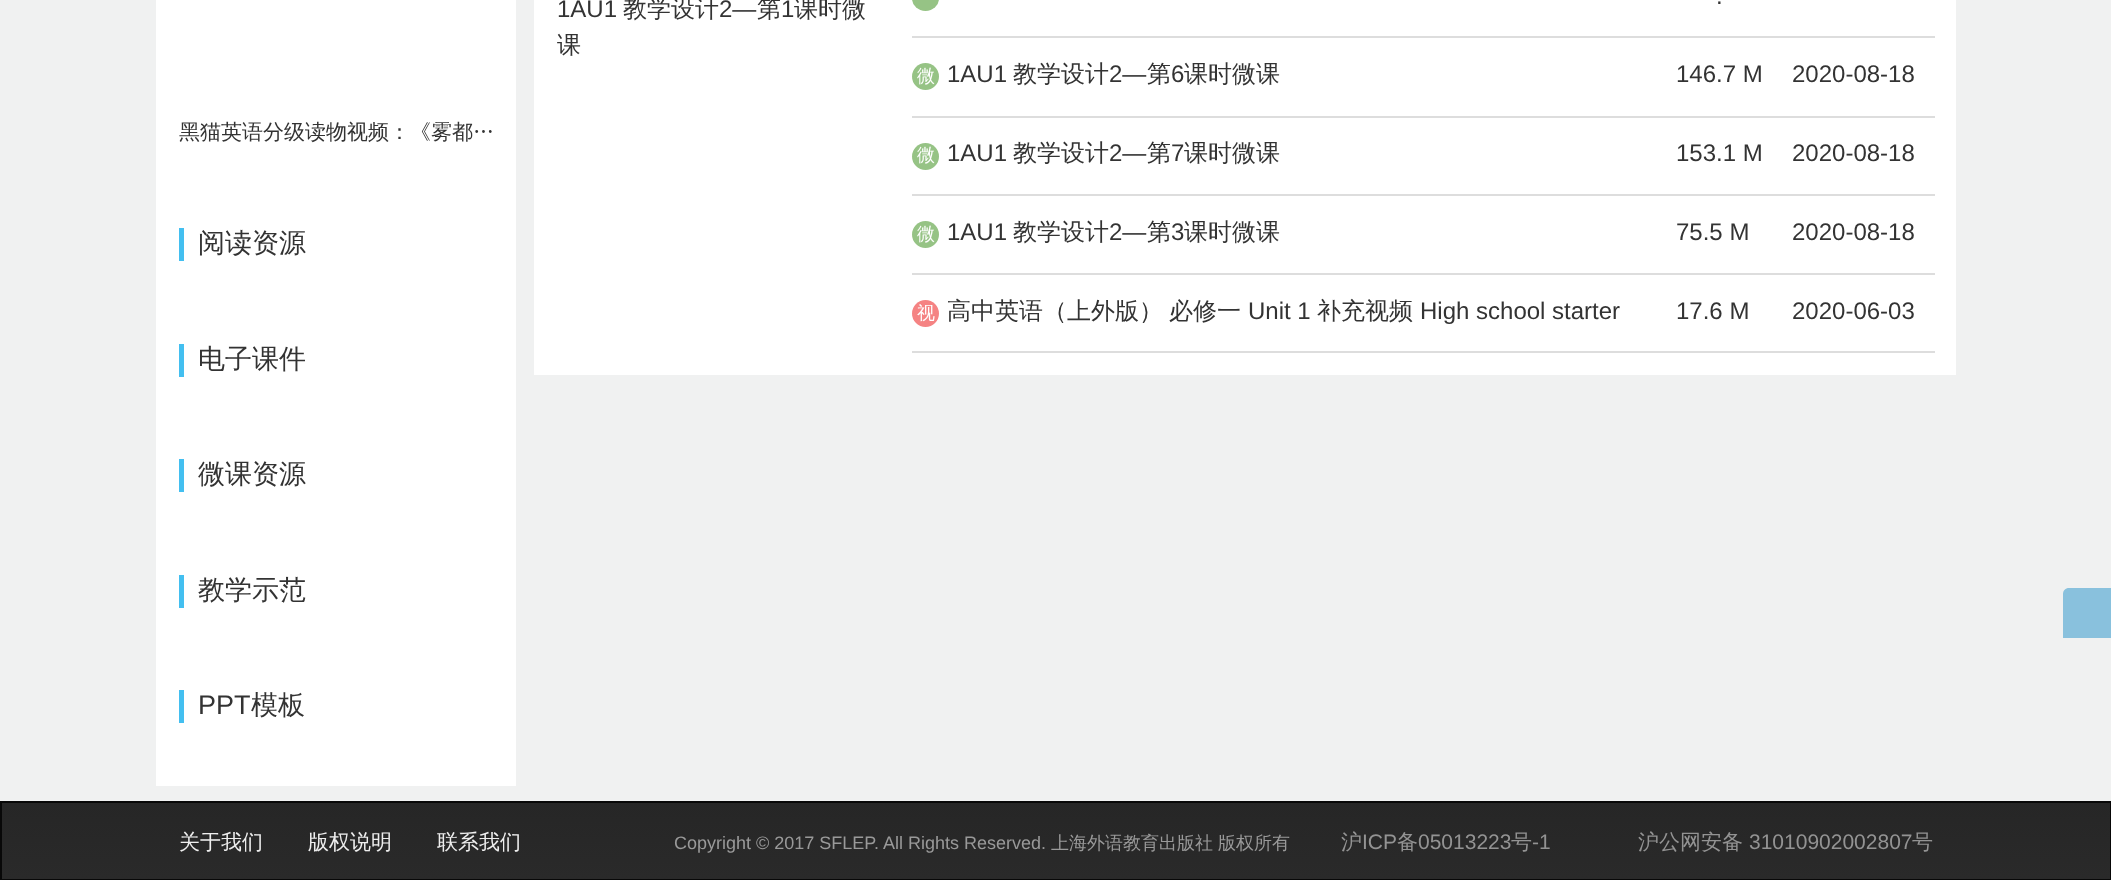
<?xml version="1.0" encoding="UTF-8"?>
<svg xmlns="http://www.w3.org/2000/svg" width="2111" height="880">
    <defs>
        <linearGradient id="g1" gradientUnits="userSpaceOnUse" x1="1056" y1="802" x2="1056" y2="879"><stop offset="0" stop-color="#262626"/><stop offset="1" stop-color="#2A2A2A"/></linearGradient>
    </defs>
    <rect width="100%" height="100%" fill="#F0F1F1"/>
    <rect x="156" y="0" width="360" height="786" fill="#FFFFFF"/>
    <text x="179" y="139" font-family="WenQuanYi Zen Hei" font-size="21" font-weight="500" fill="#333333">黑猫英语分级读物视频：《雾都…</text>
    <rect x="179" y="228" width="5" height="33" fill="#43BFF0"/>
    <text x="198" y="252" font-family="WenQuanYi Zen Hei" font-size="27" font-weight="500" fill="#333333">阅读资源</text>
    <rect x="179" y="344" width="5" height="33" fill="#43BFF0"/>
    <text x="198" y="368" font-family="WenQuanYi Zen Hei" font-size="27" font-weight="500" fill="#333333">电子课件</text>
    <rect x="179" y="459" width="5" height="33" fill="#43BFF0"/>
    <text x="198" y="483" font-family="WenQuanYi Zen Hei" font-size="27" font-weight="500" fill="#333333">微课资源</text>
    <rect x="179" y="575" width="5" height="33" fill="#43BFF0"/>
    <text x="198" y="599" font-family="WenQuanYi Zen Hei" font-size="27" font-weight="500" fill="#333333">教学示范</text>
    <rect x="179" y="690" width="5" height="33" fill="#43BFF0"/>
    <text x="198" y="714" font-family="Liberation Sans" font-size="27" fill="#333333">PPT</text>
    <text x="251" y="714" font-family="WenQuanYi Zen Hei" font-size="27" font-weight="500" fill="#333333">模板</text>
    <rect x="534" y="0" width="1422" height="375" fill="#FFFFFF"/>
    <text x="557" y="17" font-family="Liberation Sans" font-size="24" fill="#333333">1AU1</text>
    <text x="623" y="17" font-family="WenQuanYi Zen Hei" font-size="24" font-weight="500" fill="#333333">教学设计</text>
    <text x="719" y="17" font-family="Liberation Sans" font-size="24" fill="#333333">2—</text>
    <text x="757" y="17" font-family="WenQuanYi Zen Hei" font-size="24" font-weight="500" fill="#333333">第</text>
    <text x="781" y="17" font-family="Liberation Sans" font-size="24" fill="#333333">1</text>
    <text x="794" y="17" font-family="WenQuanYi Zen Hei" font-size="24" font-weight="500" fill="#333333">课时微</text>
    <text x="557" y="53" font-family="WenQuanYi Zen Hei" font-size="24" font-weight="500" fill="#333333">课</text>
    <rect x="912" y="-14" width="27" height="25" rx="13.5" fill="#96C385"/>
    <text x="1716" y="4" font-family="Liberation Sans" font-size="24" fill="#333333">.</text>
    <circle cx="925.5" cy="76.5" r="13.5" fill="#96C385"/>
    <text x="917" y="82" font-family="WenQuanYi Zen Hei" font-size="18" font-weight="500" fill="#FFFFFF">微</text>
    <text x="947" y="82" font-family="Liberation Sans" font-size="24" fill="#333333">1AU1</text>
    <text x="1013" y="82" font-family="WenQuanYi Zen Hei" font-size="24" font-weight="500" fill="#333333">教学设计</text>
    <text x="1109" y="82" font-family="Liberation Sans" font-size="24" fill="#333333">2—</text>
    <text x="1147" y="82" font-family="WenQuanYi Zen Hei" font-size="24" font-weight="500" fill="#333333">第</text>
    <text x="1171" y="82" font-family="Liberation Sans" font-size="24" fill="#333333">6</text>
    <text x="1184" y="82" font-family="WenQuanYi Zen Hei" font-size="24" font-weight="500" fill="#333333">课时微课</text>
    <text x="1676" y="82" font-family="Liberation Sans" font-size="24" fill="#333333">146.7 M</text>
    <rect x="912" y="36" width="1023" height="2" fill="#DDDDDD"/>
    <text x="1792" y="82" font-family="Liberation Sans" font-size="24" fill="#333333">2020-08-18</text>
    <circle cx="925.5" cy="156.5" r="13.5" fill="#96C385"/>
    <text x="917" y="161" font-family="WenQuanYi Zen Hei" font-size="18" font-weight="500" fill="#FFFFFF">微</text>
    <text x="947" y="161" font-family="Liberation Sans" font-size="24" fill="#333333">1AU1</text>
    <text x="1013" y="161" font-family="WenQuanYi Zen Hei" font-size="24" font-weight="500" fill="#333333">教学设计</text>
    <text x="1109" y="161" font-family="Liberation Sans" font-size="24" fill="#333333">2—</text>
    <text x="1147" y="161" font-family="WenQuanYi Zen Hei" font-size="24" font-weight="500" fill="#333333">第</text>
    <text x="1171" y="161" font-family="Liberation Sans" font-size="24" fill="#333333">7</text>
    <text x="1184" y="161" font-family="WenQuanYi Zen Hei" font-size="24" font-weight="500" fill="#333333">课时微课</text>
    <text x="1676" y="161" font-family="Liberation Sans" font-size="24" fill="#333333">153.1 M</text>
    <rect x="912" y="116" width="1023" height="2" fill="#DDDDDD"/>
    <text x="1792" y="161" font-family="Liberation Sans" font-size="24" fill="#333333">2020-08-18</text>
    <circle cx="925.5" cy="234.5" r="13.5" fill="#96C385"/>
    <text x="917" y="240" font-family="WenQuanYi Zen Hei" font-size="18" font-weight="500" fill="#FFFFFF">微</text>
    <text x="947" y="240" font-family="Liberation Sans" font-size="24" fill="#333333">1AU1</text>
    <text x="1013" y="240" font-family="WenQuanYi Zen Hei" font-size="24" font-weight="500" fill="#333333">教学设计</text>
    <text x="1109" y="240" font-family="Liberation Sans" font-size="24" fill="#333333">2—</text>
    <text x="1147" y="240" font-family="WenQuanYi Zen Hei" font-size="24" font-weight="500" fill="#333333">第</text>
    <text x="1171" y="240" font-family="Liberation Sans" font-size="24" fill="#333333">3</text>
    <text x="1184" y="240" font-family="WenQuanYi Zen Hei" font-size="24" font-weight="500" fill="#333333">课时微课</text>
    <text x="1676" y="240" font-family="Liberation Sans" font-size="24" fill="#333333">75.5 M</text>
    <rect x="912" y="194" width="1023" height="2" fill="#DDDDDD"/>
    <text x="1792" y="240" font-family="Liberation Sans" font-size="24" fill="#333333">2020-08-18</text>
    <rect x="912" y="351" width="1023" height="2" fill="#DDDDDD"/>
    <circle cx="925.5" cy="313.5" r="13.5" fill="#F58383"/>
    <text x="917" y="319" font-family="WenQuanYi Zen Hei" font-size="18" font-weight="500" fill="#FFFFFF">视</text>
    <text x="947" y="319" font-family="WenQuanYi Zen Hei" font-size="24" font-weight="500" fill="#333333">高中英语（上外版）</text>
    <text x="1169" y="319" font-family="WenQuanYi Zen Hei" font-size="24" font-weight="500" fill="#333333">必修一</text>
    <text x="1248" y="319" font-family="Liberation Sans" font-size="24" fill="#333333">Unit 1</text>
    <text x="1317" y="319" font-family="WenQuanYi Zen Hei" font-size="24" font-weight="500" fill="#333333">补充视频</text>
    <text x="1420" y="319" font-family="Liberation Sans" font-size="24" fill="#333333">High school starter</text>
    <text x="1676" y="319" font-family="Liberation Sans" font-size="24" fill="#333333">17.6 M</text>
    <rect x="912" y="273" width="1023" height="2" fill="#DDDDDD"/>
    <text x="1792" y="319" font-family="Liberation Sans" font-size="24" fill="#333333">2020-06-03</text>
    <path d="M 2069 588 H 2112 V 638 H 2063 V 594 C 2063 590.5 2065.5 588 2069 588 Z" fill="#89C1DD"/>
    <rect x="2" y="803" width="2108" height="76" fill="url(#g1)"/>
    <rect x="1" y="802" width="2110" height="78" fill="none" stroke="#080808" stroke-width="2"/>
    <text x="179" y="849" font-family="WenQuanYi Zen Hei" font-size="21" font-weight="500" fill="#EEEEEE">关于我们</text>
    <text x="308" y="849" font-family="WenQuanYi Zen Hei" font-size="21" font-weight="500" fill="#EEEEEE">版权说明</text>
    <text x="437" y="849" font-family="WenQuanYi Zen Hei" font-size="21" font-weight="500" fill="#EEEEEE">联系我们</text>
    <text x="674" y="849" font-family="Liberation Sans" font-size="18" fill="#999999">Copyright © 2017 SFLEP. All Rights Reserved.</text>
    <text x="1051" y="849" font-family="WenQuanYi Zen Hei" font-size="18" font-weight="500" fill="#999999">上海外语教育出版社</text>
    <text x="1218" y="849" font-family="WenQuanYi Zen Hei" font-size="18" font-weight="500" fill="#999999">版权所有</text>
    <text x="1341" y="849" font-family="WenQuanYi Zen Hei" font-size="21" font-weight="500" fill="#939393">沪</text>
    <text x="1362" y="849" font-family="Liberation Sans" font-size="21" fill="#939393">ICP</text>
    <text x="1397" y="849" font-family="WenQuanYi Zen Hei" font-size="21" font-weight="500" fill="#939393">备</text>
    <text x="1418" y="849" font-family="Liberation Sans" font-size="21" fill="#939393">05013223</text>
    <text x="1511" y="849" font-family="WenQuanYi Zen Hei" font-size="21" font-weight="500" fill="#939393">号</text>
    <text x="1532" y="849" font-family="Liberation Sans" font-size="21" fill="#939393">-1</text>
    <text x="1638" y="849" font-family="WenQuanYi Zen Hei" font-size="21" font-weight="500" fill="#939393">沪公网安备</text>
    <text x="1749" y="849" font-family="Liberation Sans" font-size="21" fill="#939393">31010902002807</text>
    <text x="1912" y="849" font-family="WenQuanYi Zen Hei" font-size="21" font-weight="500" fill="#939393">号</text>
</svg>
